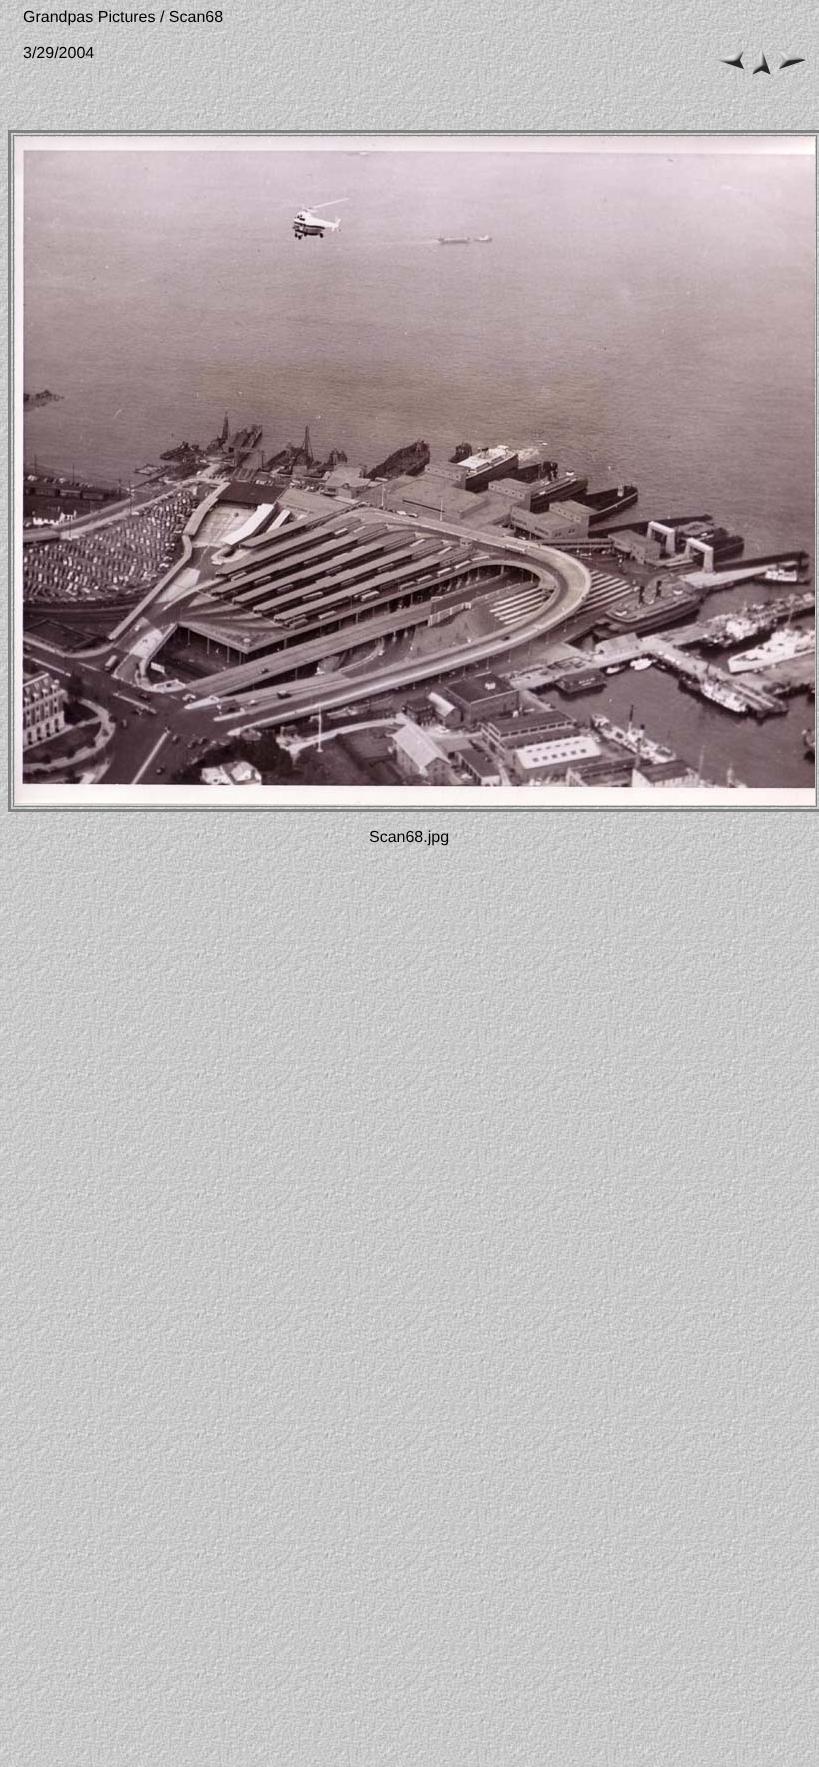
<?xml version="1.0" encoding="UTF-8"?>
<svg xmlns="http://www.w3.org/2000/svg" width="819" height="1767">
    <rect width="100%" height="100%" fill="#FFFFFF"/>
    <image x="0" y="0" width="819" height="1767" href="img_01.png"/>
    <text x="23" y="22" font-family="Liberation Sans" font-size="16" fill="#000000">Grandpas Pictures / Scan68</text>
    <text x="23" y="58" font-family="Liberation Sans" font-size="16" fill="#000000">3/29/2004</text>
    <image x="717" y="51" width="27" height="18" href="img_02.png"/>
    <image x="752" y="47" width="19" height="28" href="img_03.png"/>
    <image x="779" y="51" width="27" height="18" href="img_04.png"/>
    <rect x="9.5" y="131.5" width="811" height="679" fill="none" stroke="#808080" stroke-width="3"/>
    <rect x="13.5" y="135.5" width="803" height="671" fill="none" stroke="#808080"/>
    <image x="15" y="137" width="800" height="668" href="img_05.png"/>
    <text x="369" y="842" font-family="Liberation Sans" font-size="16" fill="#000000">Scan68.jpg</text>
</svg>
